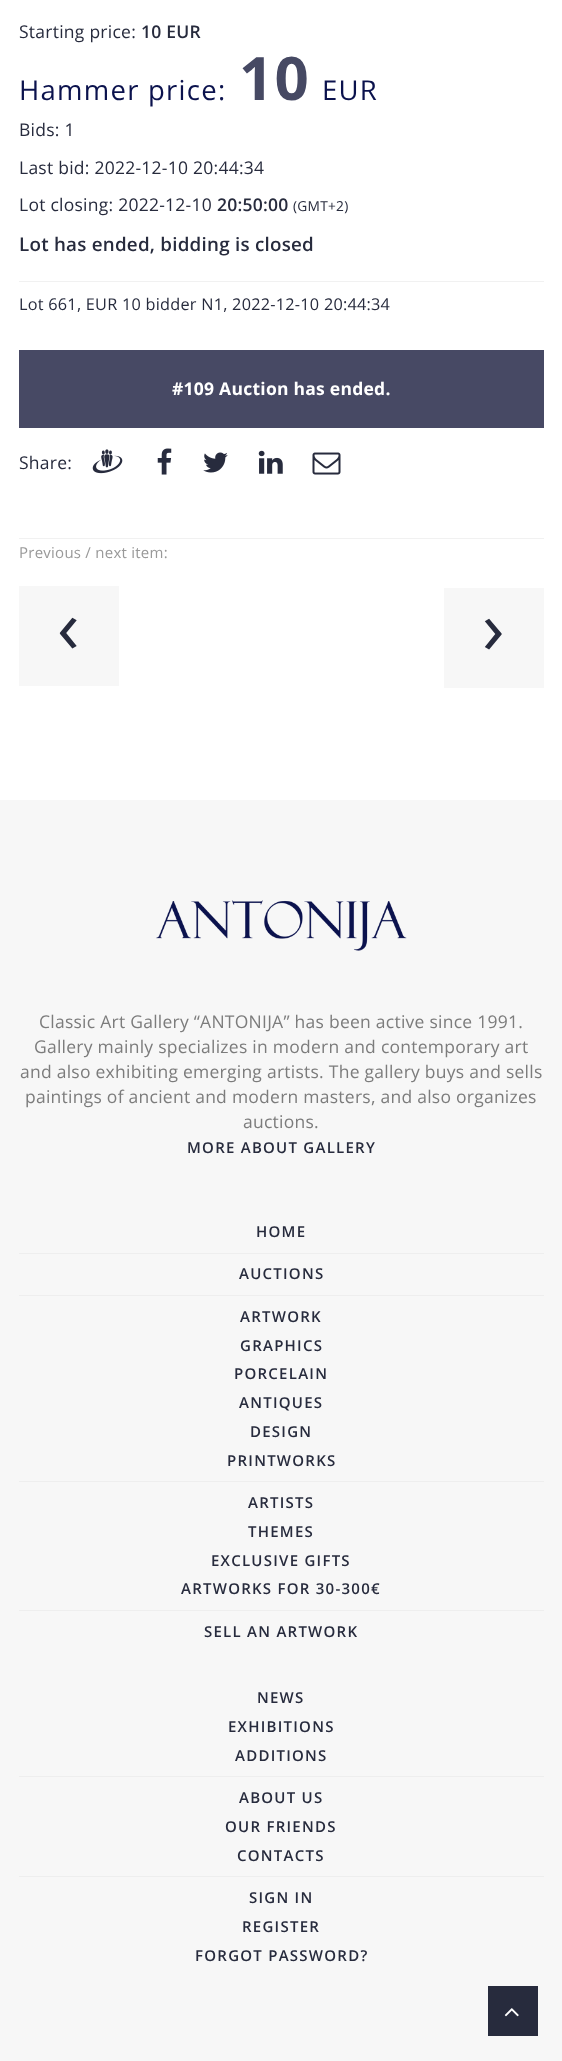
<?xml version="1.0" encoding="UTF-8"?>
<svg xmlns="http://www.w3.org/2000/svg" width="562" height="2061">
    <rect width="100%" height="100%" fill="#FFFFFF"/>
    <text x="19" y="38" font-family="Open Sans" font-size="17.5" letter-spacing="0.25" fill="#272B3D">Starting price:</text>
    <text x="141" y="38" font-family="Open Sans" font-size="17.5" font-weight="600" letter-spacing="0.25" fill="#272B3D">10 EUR</text>
    <text x="19" y="100" font-family="Open Sans" font-size="27.5" letter-spacing="1.25" fill="#0B124D">Hammer price:</text>
    <text x="239" y="100" font-family="Open Sans" font-size="60" font-weight="700" letter-spacing="1.25" fill="#464963">10</text>
    <text x="322" y="100" font-family="Open Sans" font-size="27.5" letter-spacing="1.25" fill="#0B124D">EUR</text>
    <text x="19" y="136" font-family="Open Sans" font-size="17.5" letter-spacing="0.25" fill="#272B3D">Bids: 1</text>
    <text x="19" y="174" font-family="Open Sans" font-size="17.5" letter-spacing="0.25" fill="#272B3D">Last bid: 2022-12-10 20:44:34</text>
    <text x="19" y="211" font-family="Open Sans" font-size="17.5" letter-spacing="0.25" fill="#272B3D">Lot closing: 2022-12-10</text>
    <text x="217" y="211" font-family="Open Sans" font-size="17.5" font-weight="600" letter-spacing="0.25" fill="#272B3D">20:50:00</text>
    <text x="293" y="211" font-family="Open Sans" font-size="13.75" letter-spacing="0.25" fill="#272B3D">(GMT+2)</text>
    <text x="19" y="251" font-family="Open Sans" font-size="18.75" font-weight="600" letter-spacing="0.25" fill="#272B3D">Lot has ended, bidding is closed</text>
    <rect x="19" y="281" width="525" height="1" fill="#F1F1F1"/>
    <text x="19" y="310" font-family="Open Sans" font-size="16.25" letter-spacing="0.25" fill="#272B3D">Lot 661, EUR 10 bidder N1, 2022-12-10 20:44:34</text>
    <rect x="19" y="350" width="525" height="78" fill="#474964"/>
    <text x="172" y="395" font-family="Open Sans" font-size="17.5" font-weight="700" letter-spacing="0.25" fill="#FFFFFF">#109 Auction has ended.</text>
    <text x="19" y="469" font-family="Open Sans" font-size="17.5" letter-spacing="0.25" fill="#272B3D">Share:</text>
    <image x="92" y="449" width="31" height="25" href="img_01.png"/>
    <image x="157" y="448" width="15" height="27" href="img_02.png"/>
    <image x="203" y="452" width="25" height="21" href="img_03.png"/>
    <image x="258" y="450" width="25" height="24" href="img_04.png"/>
    <image x="312" y="452" width="29" height="23" href="img_05.png"/>
    <rect x="19" y="538" width="525" height="1" fill="#F1F1F1"/>
    <text x="19" y="558" font-family="Open Sans" font-size="15" letter-spacing="0.25" fill="#999999">Previous / next item:</text>
    <rect x="19" y="586" width="100" height="100" fill="#F7F7F7"/>
    <text x="57" y="653" font-family="Open Sans" font-size="75" letter-spacing="0.25" fill="#272B3D">‹</text>
    <rect x="444" y="588" width="100" height="100" fill="#F7F7F7"/>
    <text x="482" y="654" font-family="Open Sans" font-size="75" letter-spacing="0.25" fill="#272B3D">›</text>
    <rect x="0" y="800" width="562" height="1261" fill="#F7F7F7"/>
    <image x="156" y="900" width="251" height="51" href="img_06.png"/>
    <text x="39" y="1028" font-family="Open Sans" font-size="17.5" letter-spacing="0.25" fill="#7C7C7C">Classic Art Gallery “ANTONIJA” has been active since 1991.</text>
    <text x="34" y="1053" font-family="Open Sans" font-size="17.5" letter-spacing="0.25" fill="#7C7C7C">Gallery mainly specializes in modern and contemporary art</text>
    <text x="20" y="1078" font-family="Open Sans" font-size="17.5" letter-spacing="0.25" fill="#7C7C7C">and also exhibiting emerging artists. The gallery buys and sells</text>
    <text x="25" y="1103" font-family="Open Sans" font-size="17.5" letter-spacing="0.25" fill="#7C7C7C">paintings of ancient and modern masters, and also organizes</text>
    <text x="243" y="1128" font-family="Open Sans" font-size="17.5" letter-spacing="0.25" fill="#7C7C7C">auctions.</text>
    <text x="187" y="1153" font-family="Open Sans" font-size="15" font-weight="600" letter-spacing="1.25" fill="#272B3D">MORE ABOUT GALLERY</text>
    <text x="256" y="1237" font-family="Open Sans" font-size="15" font-weight="600" letter-spacing="1.25" fill="#272B3D">HOME</text>
    <rect x="19" y="1253" width="525" height="1" fill="#EEEEEE"/>
    <text x="239" y="1279" font-family="Open Sans" font-size="15" font-weight="600" letter-spacing="1.25" fill="#272B3D">AUCTIONS</text>
    <rect x="19" y="1295" width="525" height="1" fill="#EEEEEE"/>
    <text font-family="Open Sans" font-size="15" font-weight="600" letter-spacing="1.25" fill="#272B3D">
        <tspan x="240" y="1322">ARTWORK</tspan>
        <tspan x="240" y="1351">GRAPHICS</tspan>
    </text>
    <text x="234" y="1379" font-family="Open Sans" font-size="15" font-weight="600" letter-spacing="1.25" fill="#272B3D">PORCELAIN</text>
    <text x="239" y="1408" font-family="Open Sans" font-size="15" font-weight="600" letter-spacing="1.25" fill="#272B3D">ANTIQUES</text>
    <text x="250" y="1437" font-family="Open Sans" font-size="15" font-weight="600" letter-spacing="1.25" fill="#272B3D">DESIGN</text>
    <text x="227" y="1466" font-family="Open Sans" font-size="15" font-weight="600" letter-spacing="1.25" fill="#272B3D">PRINTWORKS</text>
    <rect x="19" y="1481" width="525" height="1" fill="#EEEEEE"/>
    <text font-family="Open Sans" font-size="15" font-weight="600" letter-spacing="1.25" fill="#272B3D">
        <tspan x="248" y="1508">ARTISTS</tspan>
        <tspan x="248" y="1537">THEMES</tspan>
    </text>
    <text x="211" y="1566" font-family="Open Sans" font-size="15" font-weight="600" letter-spacing="1.25" fill="#272B3D">EXCLUSIVE GIFTS</text>
    <text x="181" y="1594" font-family="Open Sans" font-size="15" font-weight="600" letter-spacing="1.25" fill="#272B3D">ARTWORKS FOR 30-300€</text>
    <rect x="19" y="1610" width="525" height="1" fill="#EEEEEE"/>
    <text x="204" y="1637" font-family="Open Sans" font-size="15" font-weight="600" letter-spacing="1.25" fill="#272B3D">SELL AN ARTWORK</text>
    <text x="257" y="1703" font-family="Open Sans" font-size="15" font-weight="600" letter-spacing="1.25" fill="#272B3D">NEWS</text>
    <text x="228" y="1732" font-family="Open Sans" font-size="15" font-weight="600" letter-spacing="1.25" fill="#272B3D">EXHIBITIONS</text>
    <text x="235" y="1761" font-family="Open Sans" font-size="15" font-weight="600" letter-spacing="1.25" fill="#272B3D">ADDITIONS</text>
    <rect x="19" y="1776" width="525" height="1" fill="#EEEEEE"/>
    <text x="239" y="1803" font-family="Open Sans" font-size="15" font-weight="600" letter-spacing="1.25" fill="#272B3D">ABOUT US</text>
    <text x="225" y="1832" font-family="Open Sans" font-size="15" font-weight="600" letter-spacing="1.25" fill="#272B3D">OUR FRIENDS</text>
    <text x="237" y="1861" font-family="Open Sans" font-size="15" font-weight="600" letter-spacing="1.25" fill="#272B3D">CONTACTS</text>
    <rect x="19" y="1876" width="525" height="1" fill="#EEEEEE"/>
    <text x="249" y="1903" font-family="Open Sans" font-size="15" font-weight="600" letter-spacing="1.25" fill="#272B3D">SIGN IN</text>
    <text x="242" y="1932" font-family="Open Sans" font-size="15" font-weight="600" letter-spacing="1.25" fill="#272B3D">REGISTER</text>
    <text x="195" y="1961" font-family="Open Sans" font-size="15" font-weight="600" letter-spacing="1.25" fill="#272B3D">FORGOT PASSWORD?</text>
    <rect x="488" y="1986" width="50" height="50" fill="#272B3D"/>
    <image x="504" y="2008" width="15" height="9" href="img_07.png"/>
</svg>
